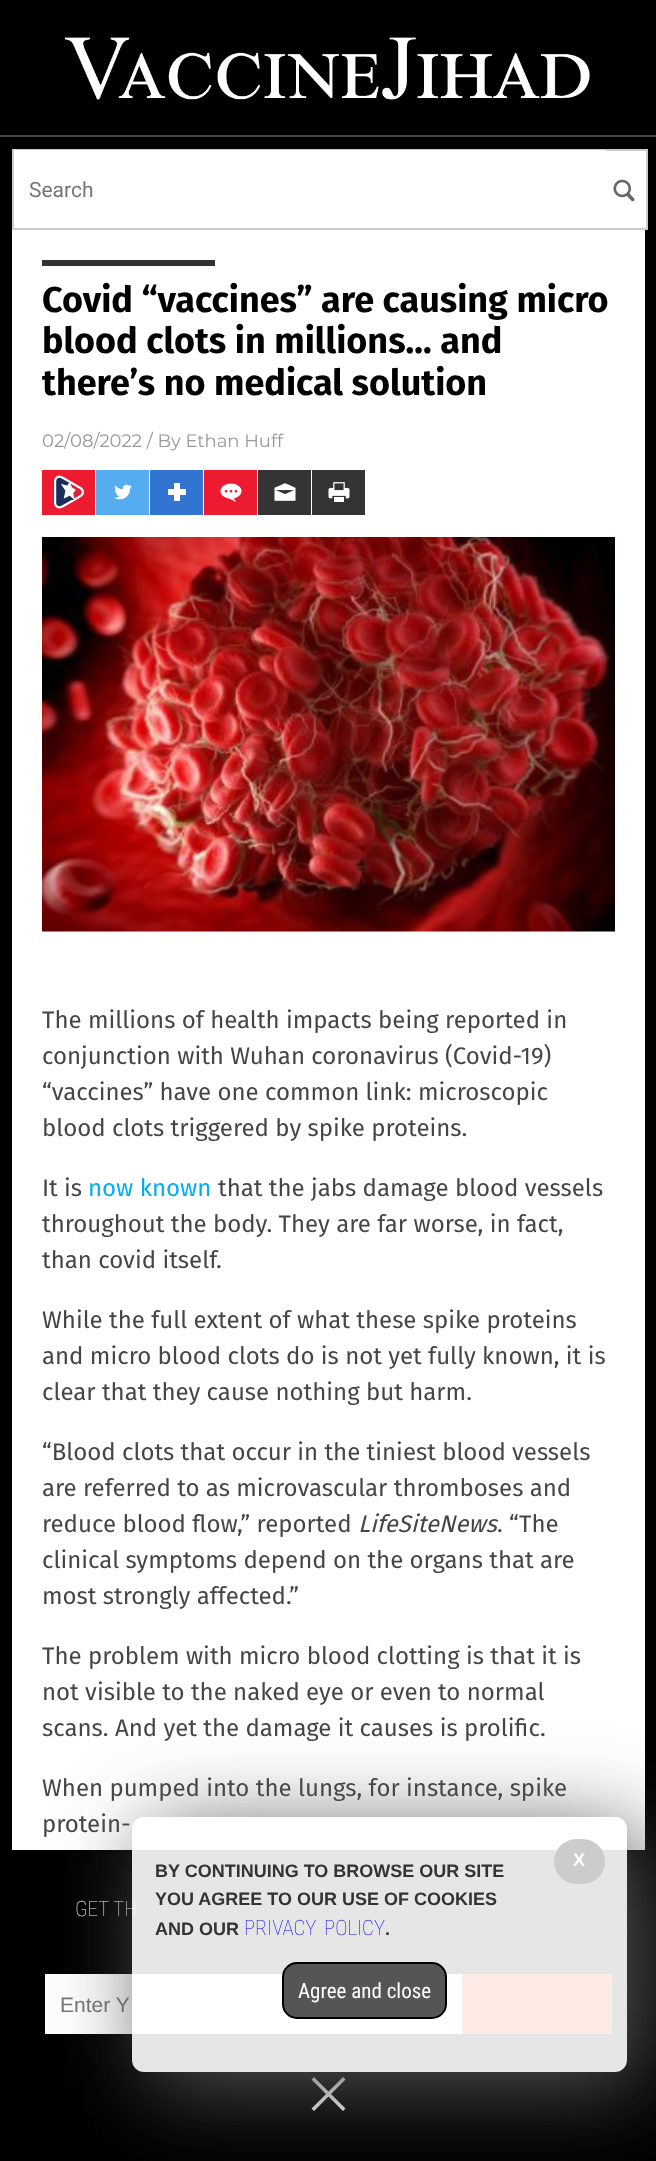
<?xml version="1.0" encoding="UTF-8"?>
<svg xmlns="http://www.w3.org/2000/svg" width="656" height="2161">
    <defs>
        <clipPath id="clip1"><path d="M 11 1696 H 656 V 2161 H 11 Z M 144 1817 H 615 C 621.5 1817 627 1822.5 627 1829 V 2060 C 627 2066.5 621.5 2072 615 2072 H 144 C 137.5 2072 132 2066.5 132 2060 V 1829 C 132 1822.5 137.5 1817 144 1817 Z" clip-rule="evenodd"/></clipPath>
        <filter id="blur1" x="-50%" y="-200%" width="200%" height="500%"><feGaussianBlur stdDeviation="45"/></filter>
    </defs>
    <rect width="100%" height="100%" fill="#000000"/>
    <image x="64" y="37" width="526" height="63" href="img_01.png"/>
    <rect x="0" y="135" width="656" height="2" fill="#454545"/>
    <rect x="606" y="151" width="40" height="77" fill="#FFFFFF"/>
    <rect x="13" y="150" width="634" height="79" fill="none" stroke="#CCCCCC" stroke-width="2"/>
    <rect x="14" y="150" width="592" height="78" fill="#FFFFFF"/>
    <text x="29" y="197" font-family="Roboto" font-size="21" fill="#757575">Search</text>
    <image x="613" y="179" width="22" height="23" href="img_02.png"/>
    <rect x="12" y="230" width="633" height="1620" fill="#FFFFFF"/>
    <rect x="42" y="260" width="173" height="6" fill="#333333"/>
    <text font-family="Fira Sans" font-size="36" font-weight="700" fill="#000000">
        <tspan x="42" y="312">Covid “vaccines” are causing micro</tspan>
        <tspan x="42" y="353">blood clots in millions… and</tspan>
        <tspan x="42" y="395">there’s no medical solution</tspan>
    </text>
    <text x="42" y="447" font-family="Montserrat" font-size="18" fill="#999999">02/08/2022 / By Ethan Huff</text>
    <rect x="42" y="470" width="53" height="45" fill="#ED1B2F"/>
    <image x="54" y="475" width="30" height="34" href="img_03.png"/>
    <rect x="96" y="470" width="53" height="45" fill="#55ACEF"/>
    <image x="114" y="484" width="18" height="16" href="img_04.png"/>
    <rect x="150" y="470" width="53" height="45" fill="#3274D1"/>
    <image x="168" y="483" width="18" height="18" href="img_05.png"/>
    <rect x="204" y="470" width="53" height="45" fill="#ED1B2F"/>
    <image x="220" y="483" width="22" height="19" href="img_06.png"/>
    <rect x="258" y="470" width="53" height="45" fill="#343434"/>
    <image x="274" y="483" width="22" height="18" href="img_07.png"/>
    <rect x="312" y="470" width="53" height="45" fill="#343434"/>
    <image x="328" y="482" width="22" height="20" href="img_08.png"/>
    <image x="42" y="537" width="573" height="395" href="img_09.png"/>
    <text font-family="Fira Sans" font-size="24" fill="#454545">
        <tspan x="42" y="1028">The millions of health impacts being reported in</tspan>
        <tspan x="42" y="1064">conjunction with Wuhan coronavirus (Covid-19)</tspan>
        <tspan x="42" y="1100">“vaccines” have one common link: microscopic</tspan>
        <tspan x="42" y="1136">blood clots triggered by spike proteins.</tspan>
    </text>
    <text x="42" y="1196" font-family="Fira Sans" font-size="24" fill="#454545">It is</text>
    <text x="88" y="1196" font-family="Fira Sans" font-size="24" fill="#00AEEF">now known</text>
    <text x="218" y="1196" font-family="Fira Sans" font-size="24" fill="#454545">that the jabs damage blood vessels</text>
    <text font-family="Fira Sans" font-size="24" fill="#454545">
        <tspan x="42" y="1232">throughout the body. They are far worse, in fact,</tspan>
        <tspan x="42" y="1268">than covid itself.</tspan>
    </text>
    <text font-family="Fira Sans" font-size="24" fill="#454545">
        <tspan x="42" y="1328">While the full extent of what these spike proteins</tspan>
        <tspan x="42" y="1364">and micro blood clots do is not yet fully known, it is</tspan>
        <tspan x="42" y="1400">clear that they cause nothing but harm.</tspan>
    </text>
    <text font-family="Fira Sans" font-size="24" fill="#454545">
        <tspan x="42" y="1460">“Blood clots that occur in the tiniest blood vessels</tspan>
        <tspan x="42" y="1496">are referred to as microvascular thromboses and</tspan>
        <tspan x="42" y="1532">reduce blood flow,” reported</tspan>
    </text>
    <text x="358" y="1532" font-family="Fira Sans" font-size="24" font-style="italic" fill="#454545">LifeSiteNews</text>
    <text x="497" y="1532" font-family="Fira Sans" font-size="24" fill="#454545">. “The</text>
    <text font-family="Fira Sans" font-size="24" fill="#454545">
        <tspan x="42" y="1568">clinical symptoms depend on the organs that are</tspan>
        <tspan x="42" y="1604">most strongly affected.”</tspan>
    </text>
    <text font-family="Fira Sans" font-size="24" fill="#454545">
        <tspan x="42" y="1664">The problem with micro blood clotting is that it is</tspan>
        <tspan x="42" y="1700">not visible to the naked eye or even to normal</tspan>
        <tspan x="42" y="1736">scans. And yet the damage it causes is prolific.</tspan>
    </text>
    <text font-family="Fira Sans" font-size="24" fill="#454545">
        <tspan x="42" y="1796">When pumped into the lungs, for instance, spike</tspan>
        <tspan x="42" y="1832">protein-</tspan>
    </text>
    <text x="75" y="1916" font-family="Roboto Condensed" font-size="21" font-weight="100" fill="#FFFFFF">GET TH</text>
    <rect x="45" y="1974" width="417" height="60" fill="#FFFFFF"/>
    <text x="60" y="2012" font-family="Liberation Sans" font-size="21" fill="#757575">Enter Y</text>
    <rect x="462" y="1974" width="150" height="60" fill="#FF3300"/>
    <path d="M 345.5 2079.5 L 343 2077 L 328.5 2091.5 L 314 2077 L 311.5 2079.5 L 326 2094 L 311.5 2108.5 L 314 2111 L 328.5 2096.5 L 343 2111 L 345.5 2108.5 L 331 2094 Z" fill="#FFFFFF"/>
    <g clip-path="url(#clip1)">
        <rect x="147" y="1832" width="495" height="255" rx="12" fill="#555555" filter="url(#blur1)"/>
    </g>
    <rect x="132" y="1817" width="495" height="255" rx="12" fill="#FFFFFF" fill-opacity="0.9"/>
    <rect x="554" y="1839" width="51" height="45" rx="22.5" fill="#CCCCCC"/>
    <text x="573" y="1866" font-family="Liberation Sans" font-size="18" font-weight="700" fill="#FFFFFF">X</text>
    <text font-family="Liberation Sans" font-size="18" font-weight="700" fill="#333333">
        <tspan x="155" y="1877">BY CONTINUING TO BROWSE OUR SITE</tspan>
        <tspan x="155" y="1905">YOU AGREE TO OUR USE OF COOKIES</tspan>
        <tspan x="155" y="1935">AND OUR</tspan>
    </text>
    <text x="244" y="1935" word-spacing="3" font-family="Roboto Condensed" font-size="21" font-weight="100" fill="#0000FF">PRIVACY POLICY</text>
    <text x="385" y="1935" font-family="Liberation Sans" font-size="18" font-weight="700" fill="#333333">.</text>
    <rect x="283" y="1963" width="163" height="55" rx="14" fill="#555555" stroke="#000000" stroke-width="2"/>
    <text x="298" y="1998" font-family="Roboto Condensed" font-size="21" fill="#FFFFFF">Agree and close</text>
</svg>
